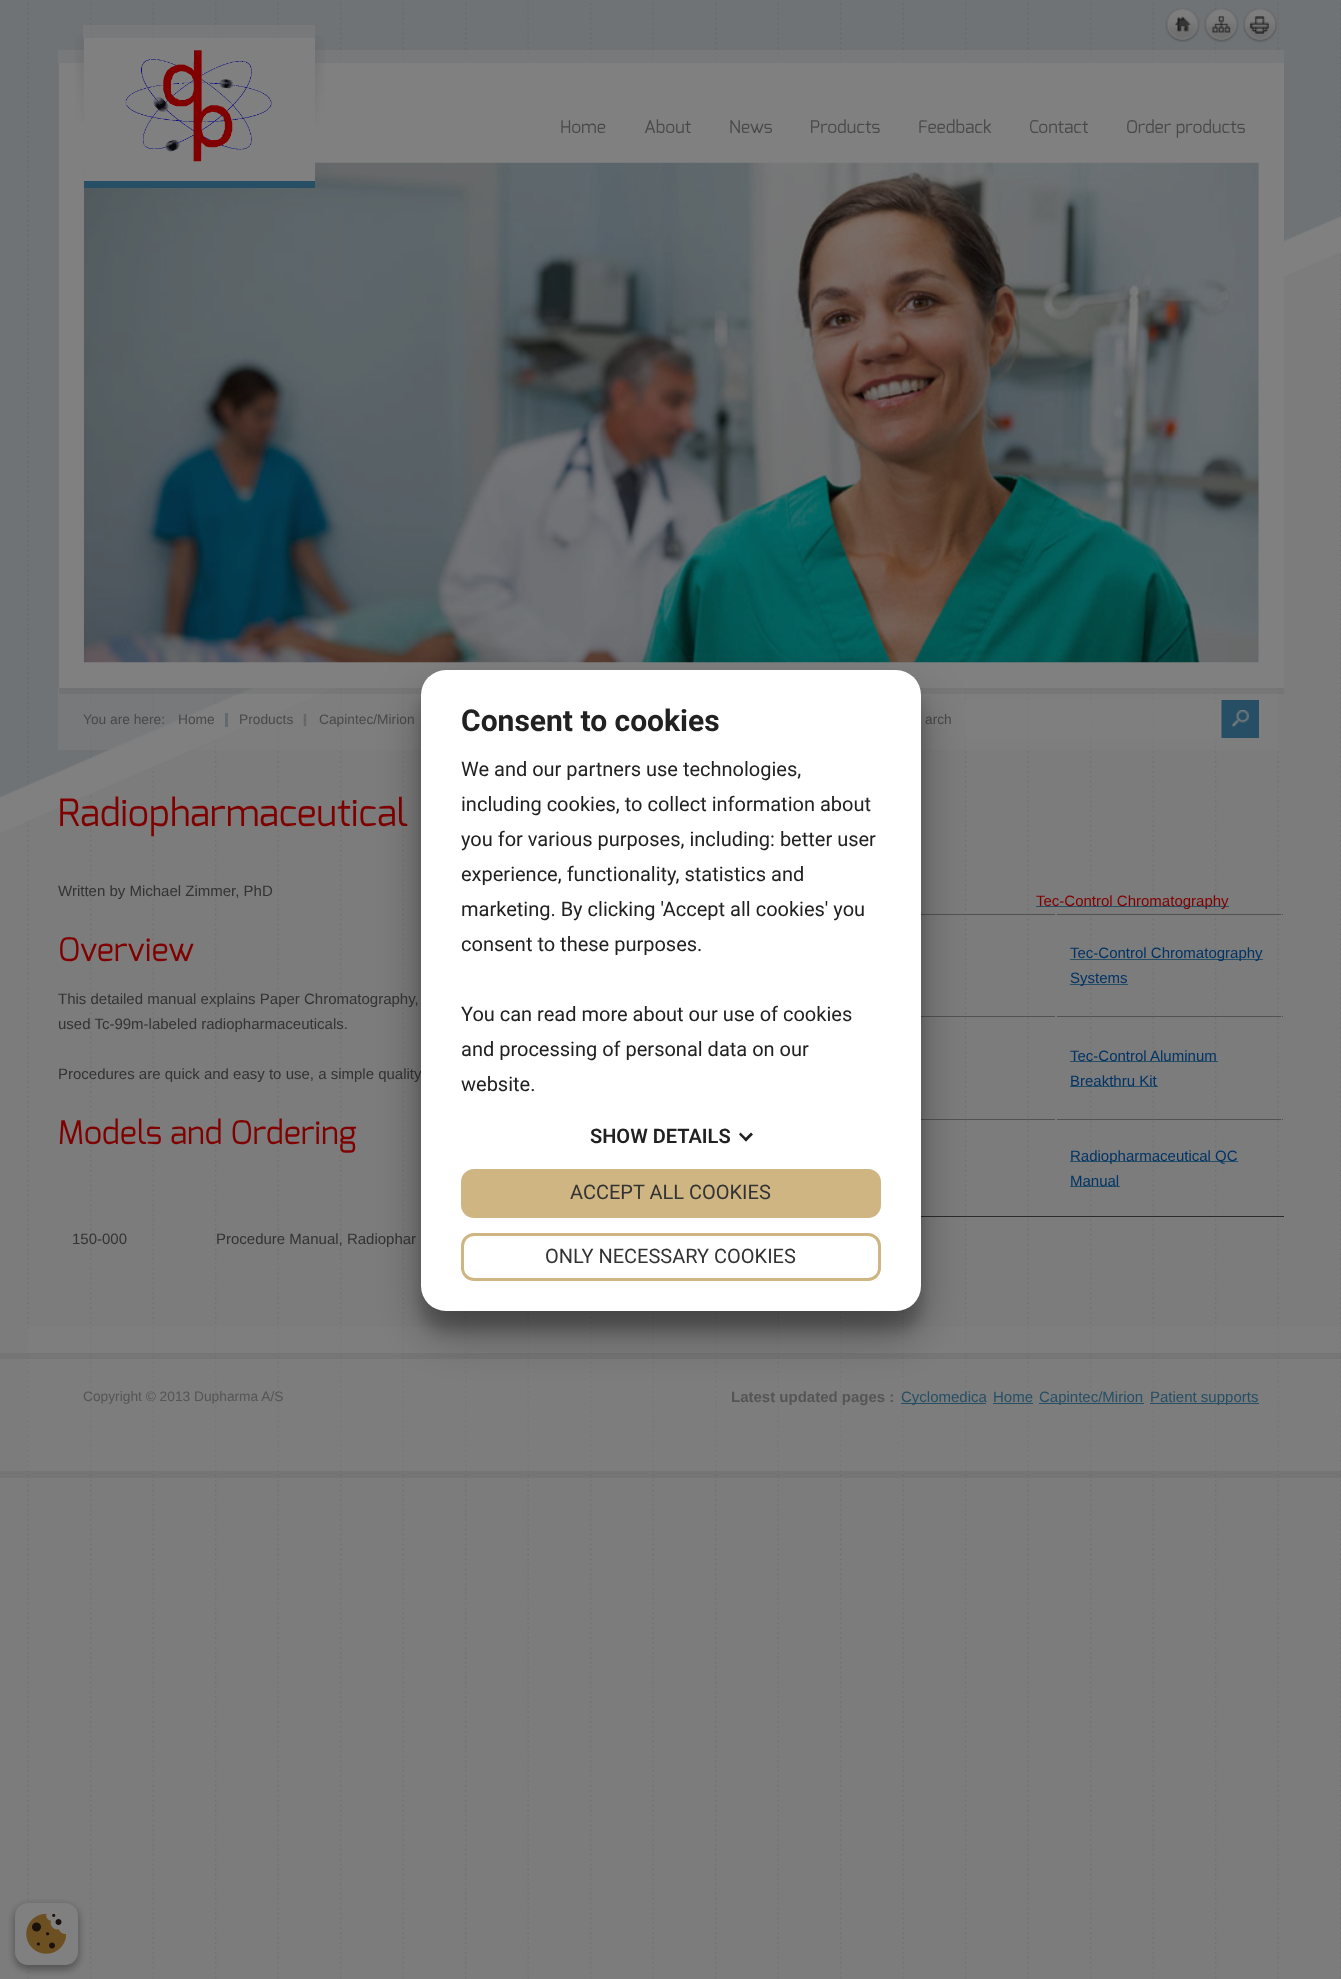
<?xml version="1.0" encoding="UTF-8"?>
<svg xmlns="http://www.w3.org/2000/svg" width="1341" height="1979">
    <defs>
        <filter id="blur1" x="-50%" y="-200%" width="200%" height="500%"><feGaussianBlur stdDeviation="7.5"/></filter>
        <filter id="blur2" x="-50%" y="-200%" width="200%" height="500%"><feGaussianBlur stdDeviation="24"/></filter>
        <filter id="blur3" x="-50%" y="-200%" width="200%" height="500%"><feGaussianBlur stdDeviation="4"/></filter>
    </defs>
    <rect width="100%" height="100%" fill="#FFFFFF"/>
    <image x="0" y="0" width="1341" height="1979" href="img_01.png"/>
    <image x="0" y="0" width="1341" height="833" href="img_02.png"/>
    <rect x="58" y="50" width="1226" height="13" fill="#808080" fill-opacity="0.5"/>
    <rect x="59" y="63" width="1225" height="625" fill="#808080"/>
    <image x="1165" y="8" width="35" height="34" href="img_03.png"/>
    <image x="1204" y="8" width="35" height="35" href="img_04.png"/>
    <image x="1243" y="8" width="34" height="35" href="img_05.png"/>
    <image x="75" y="35" width="9" height="87" href="img_06.png"/>
    <image x="83" y="162" width="1176" height="501" href="img_09.png"/>
    <rect x="84" y="181" width="231" height="7" fill="#264F65"/>
    <rect x="83" y="25" width="232" height="13" fill="#808080" fill-opacity="0.5"/>
    <rect x="84" y="38" width="231" height="143" fill="#808080"/>
    <image x="125" y="50" width="147" height="112" href="img_07.png"/>
    <image x="315" y="35" width="10" height="91" href="img_08.png"/>
    <text x="560" y="133" font-family="Exo" font-size="17.5" fill="#494949">Home</text>
    <text x="644" y="133" font-family="Exo" font-size="17.5" fill="#494949">About</text>
    <text x="729" y="133" font-family="Exo" font-size="17.5" fill="#494949">News</text>
    <text x="810" y="133" font-family="Exo" font-size="17.5" fill="#494949">Products</text>
    <text x="918" y="133" font-family="Exo" font-size="17.5" fill="#494949">Feedback</text>
    <text x="1029" y="133" font-family="Exo" font-size="17.5" fill="#494949">Contact</text>
    <text x="1126" y="133" font-family="Exo" font-size="17.5" fill="#494949">Order products</text>
    <rect x="58" y="688" width="1221" height="62" fill="#808080" fill-opacity="0.5"/>
    <rect x="59" y="688" width="1225" height="6" fill="#000000" fill-opacity="0.05"/>
    <text x="83" y="724" font-family="Liberation Sans" font-size="13.75" fill="#494949">You are here:</text>
    <rect x="225" y="713" width="3" height="14" fill="#62696F"/>
    <text x="178" y="724" font-family="Liberation Sans" font-size="13.75" fill="#494949">Home</text>
    <image x="303" y="713" width="4" height="14" href="img_10.png"/>
    <text x="239" y="724" font-family="Liberation Sans" font-size="13.75" fill="#494949">Products</text>
    <text x="319" y="724" font-family="Liberation Sans" font-size="13.75" fill="#494949">Capintec/Mirion</text>
    <rect x="1221" y="700" width="38" height="38" fill="#264F65"/>
    <rect x="965" y="700" width="257" height="38" fill="#808080" fill-opacity="0.5"/>
    <text x="925" y="724" font-family="Liberation Sans" font-size="13.75" fill="#494949">arch</text>
    <image x="1232" y="710" width="17" height="17" href="img_11.png"/>
    <text x="58" y="826" font-family="Exo" font-size="37.5" fill="#800000">Radiopharmaceutical</text>
    <text x="58" y="896" font-family="Liberation Sans" font-size="15" fill="#333333">Written by Michael Zimmer, PhD</text>
    <text x="58" y="961" font-family="Exo" font-size="32.5" fill="#800000">Overview</text>
    <text font-family="Liberation Sans" font-size="15" fill="#333333">
        <tspan x="58" y="1004">This detailed manual explains Paper Chromatography,</tspan>
        <tspan x="58" y="1029">used Tc-99m-labeled radiopharmaceuticals.</tspan>
    </text>
    <text x="58" y="1079" font-family="Liberation Sans" font-size="15" fill="#333333">Procedures are quick and easy to use, a simple quality</text>
    <text x="58" y="1144" font-family="Exo" font-size="32.5" fill="#800000">Models and Ordering</text>
    <rect x="90" y="1264" width="64" height="1" fill="#7B7B7B"/>
    <text x="72" y="1244" font-family="Liberation Sans" font-size="15" fill="#333333">150-000</text>
    <rect x="215" y="1264" width="189" height="1" fill="#7B7B7B"/>
    <text x="216" y="1244" font-family="Liberation Sans" font-size="15" fill="#333333">Procedure Manual, Radiophar</text>
    <rect x="1036" y="906" width="193" height="1" fill="#264F65"/>
    <text x="1036" y="906" font-family="Liberation Sans" font-size="15" fill="#800000">Tec-Control Chromatography</text>
    <rect x="965" y="913" width="251" height="1" fill="#7B7B7B"/>
    <rect x="921" y="1216" width="363" height="1" fill="#2B2B2B"/>
    <rect x="921" y="914" width="362" height="1" fill="#525252"/>
    <rect x="1055" y="914" width="2" height="1" fill="#7B7B7B"/>
    <rect x="1281" y="914" width="1" height="1" fill="#7B7B7B"/>
    <rect x="1070" y="959" width="193" height="1" fill="#264F65"/>
    <text x="1070" y="958" font-family="Liberation Sans" font-size="15" fill="#003366">Tec-Control Chromatography</text>
    <rect x="1070" y="984" width="58" height="1" fill="#264F65"/>
    <text x="1070" y="983" font-family="Liberation Sans" font-size="15" fill="#003366">Systems</text>
    <rect x="921" y="1016" width="362" height="1" fill="#525252"/>
    <rect x="1055" y="1016" width="2" height="1" fill="#7B7B7B"/>
    <rect x="1281" y="1016" width="1" height="1" fill="#7B7B7B"/>
    <rect x="1070" y="1061" width="148" height="1" fill="#264F65"/>
    <text x="1070" y="1061" font-family="Liberation Sans" font-size="15" fill="#003366">Tec-Control Aluminum</text>
    <rect x="1070" y="1086" width="88" height="1" fill="#264F65"/>
    <text x="1070" y="1086" font-family="Liberation Sans" font-size="15" fill="#003366">Breakthru Kit</text>
    <rect x="921" y="1119" width="362" height="1" fill="#525252"/>
    <rect x="1055" y="1119" width="2" height="1" fill="#7B7B7B"/>
    <rect x="965" y="1215" width="64" height="1" fill="#7B7B7B"/>
    <rect x="1281" y="1119" width="1" height="1" fill="#7B7B7B"/>
    <rect x="1090" y="1215" width="193" height="1" fill="#7B7B7B"/>
    <rect x="1070" y="1161" width="168" height="1" fill="#264F65"/>
    <text x="1070" y="1161" font-family="Liberation Sans" font-size="15" fill="#003366">Radiopharmaceutical QC</text>
    <rect x="1070" y="1186" width="50" height="1" fill="#264F65"/>
    <text x="1070" y="1186" font-family="Liberation Sans" font-size="15" fill="#003366">Manual</text>
    <rect x="27" y="1327" width="1314" height="26" fill="#808080" fill-opacity="0.5"/>
    <rect x="0" y="1471" width="1341" height="7" fill="#000000" fill-opacity="0.05"/>
    <rect x="27" y="1353" width="1314" height="118" fill="#808080" fill-opacity="0.3"/>
    <rect x="0" y="1353" width="1341" height="6" fill="#000000" fill-opacity="0.05"/>
    <text x="83" y="1401" font-family="Liberation Sans" font-size="13.75" fill="#555555">Copyright © 2013 Dupharma A/S</text>
    <text x="731" y="1402" font-family="Liberation Sans" font-size="15" font-weight="700" fill="#555555">Latest updated pages :</text>
    <rect x="901" y="1403" width="85" height="1" fill="#264F65"/>
    <text x="901" y="1402" font-family="Liberation Sans" font-size="15" fill="#264F65">Cyclomedica</text>
    <text x="993" y="1402" font-family="Liberation Sans" font-size="15" fill="#264F65">Home</text>
    <rect x="993" y="1403" width="40" height="1" fill="#264F65"/>
    <rect x="1039" y="1403" width="105" height="1" fill="#264F65"/>
    <text x="1039" y="1402" font-family="Liberation Sans" font-size="15" fill="#264F65">Capintec/Mirion</text>
    <rect x="1150" y="1403" width="109" height="1" fill="#264F65"/>
    <text x="1150" y="1402" font-family="Liberation Sans" font-size="15" fill="#264F65">Patient supports</text>
    <rect x="421" y="689" width="500" height="641" rx="25" fill="#000000" fill-opacity="0.22" filter="url(#blur1)"/>
    <rect x="421" y="694" width="500" height="641" rx="25" fill="#000000" fill-opacity="0.3" filter="url(#blur2)"/>
    <rect x="421" y="670" width="500" height="641" rx="25" fill="#FFFFFF"/>
    <text x="461" y="731" font-family="Roboto" font-size="30" font-weight="700" fill="#212121">Consent to cookies</text>
    <text font-family="Roboto" font-size="20" fill="#212121">
        <tspan x="461" y="776">We and our partners use technologies,</tspan>
        <tspan x="461" y="811">including cookies, to collect information about</tspan>
        <tspan x="461" y="846">you for various purposes, including: better user</tspan>
        <tspan x="461" y="881">experience, functionality, statistics and</tspan>
        <tspan x="461" y="916">marketing. By clicking 'Accept all cookies' you</tspan>
        <tspan x="461" y="951">consent to these purposes.</tspan>
    </text>
    <text font-family="Roboto" font-size="20" fill="#212121">
        <tspan x="461" y="1021">You can read more about our use of cookies</tspan>
        <tspan x="461" y="1056">and processing of personal data on our</tspan>
        <tspan x="461" y="1091">website.</tspan>
    </text>
    <text x="590" y="1143" font-family="Roboto" font-size="20" font-weight="600" fill="#212121">SHOW DETAILS</text>
    <path d="M 751 1132.5 L 753 1134.5 L 746 1141.5 L 744 1139.5 Z" fill="#212121"/>
    <path d="M 740.5 1132.5 L 747.5 1139.5 L 746 1141.5 L 739 1134.5 Z" fill="#212121"/>
    <rect x="462.5" y="1170.5" width="417" height="46" rx="11.5" fill="#CEB582" stroke="#CEB582" stroke-width="3"/>
    <text x="570" y="1199" font-family="Roboto" font-size="20" fill="#333333">ACCEPT ALL COOKIES</text>
    <rect x="462.5" y="1234.5" width="417" height="45" rx="11.5" fill="none" stroke="#CEB582" stroke-width="3"/>
    <text x="545" y="1263" font-family="Roboto" font-size="20" fill="#333333">ONLY NECESSARY COOKIES</text>
    <rect x="15" y="1906" width="63" height="63" rx="13" fill="#000000" fill-opacity="0.23" filter="url(#blur3)"/>
    <rect x="15" y="1906" width="63" height="63" rx="13" fill="#000000" fill-opacity="0.16" filter="url(#blur3)"/>
    <rect x="15" y="1903" width="63" height="62" rx="13" fill="#808080"/>
    <image x="26" y="1914" width="40" height="40" href="img_12.png"/>
</svg>
